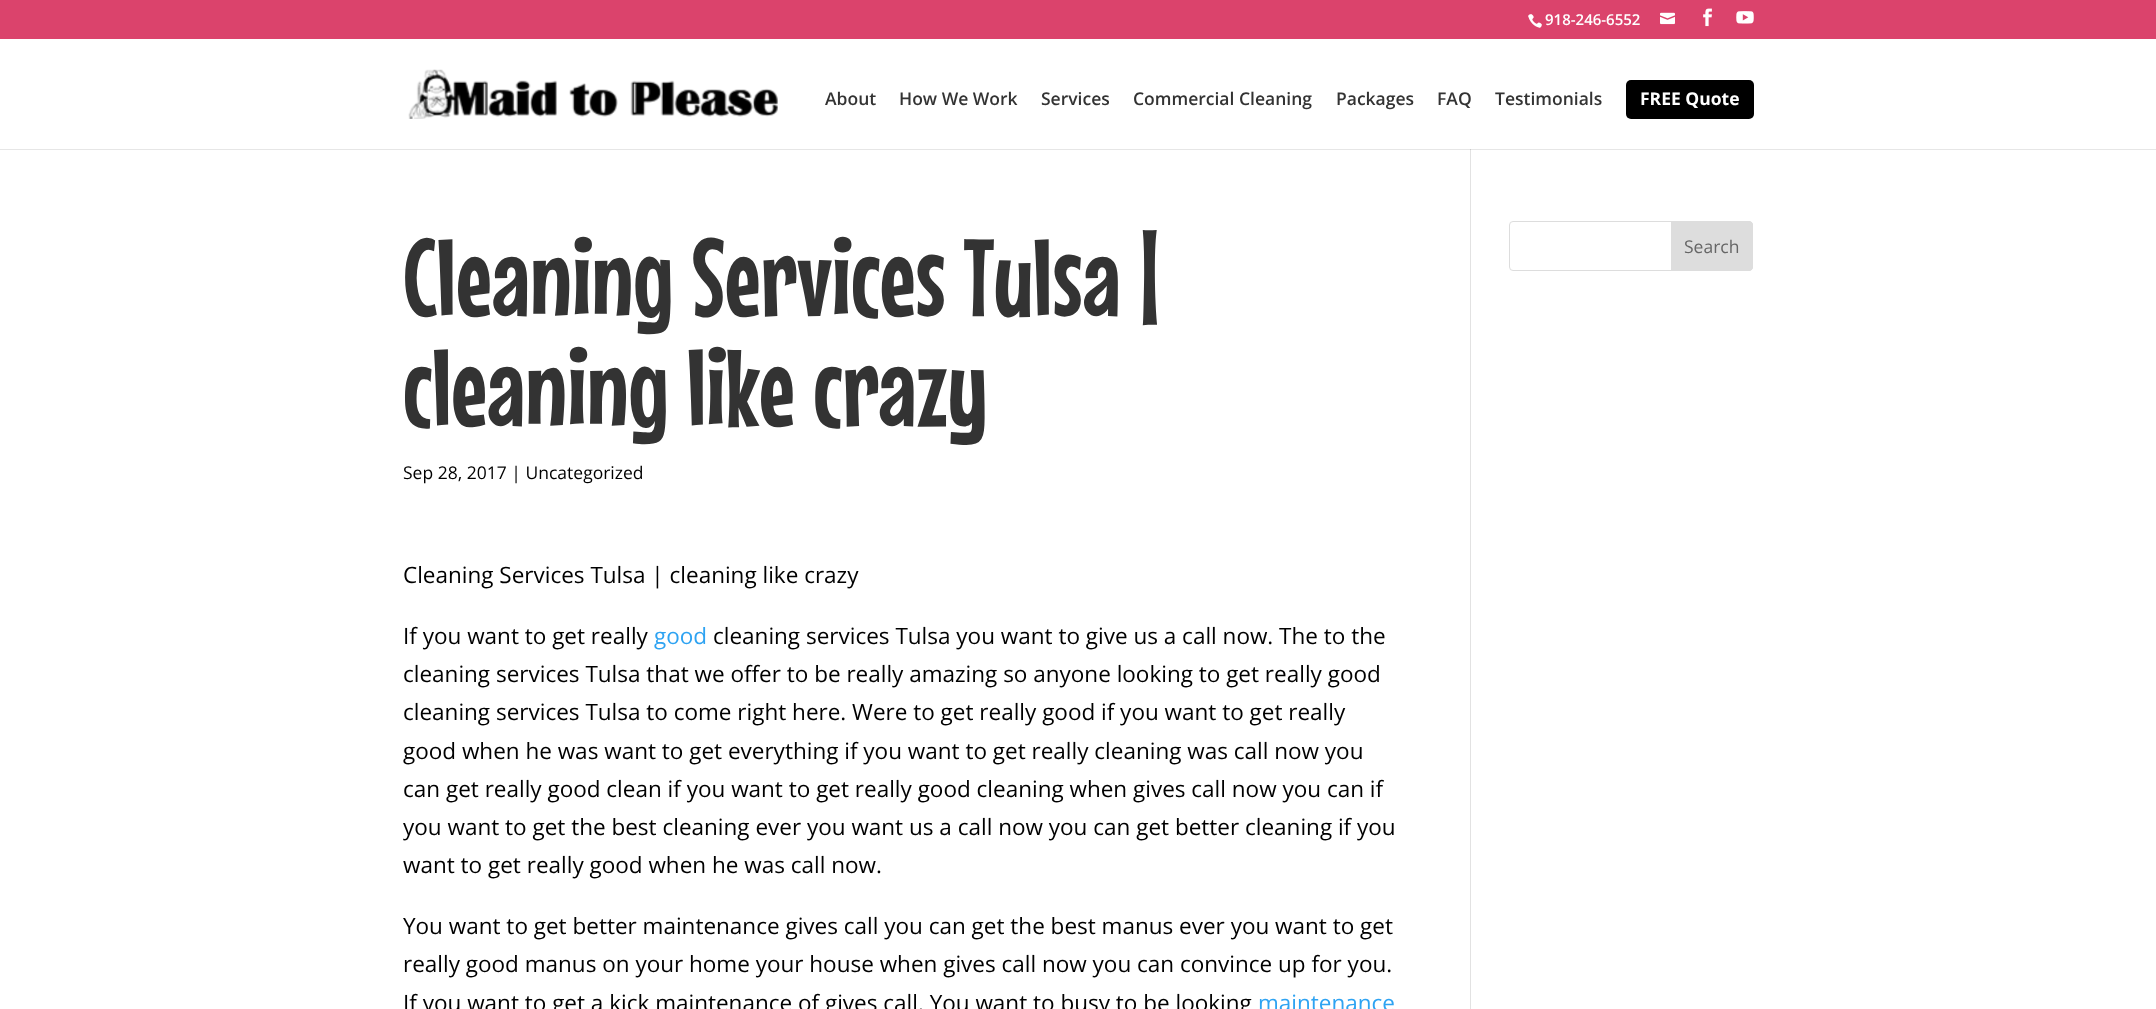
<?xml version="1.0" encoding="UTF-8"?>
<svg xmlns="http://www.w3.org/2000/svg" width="2156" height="1009">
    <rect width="100%" height="100%" fill="#DB436C"/>
    <image x="1528" y="14" width="14" height="14" href="img_01.png"/>
    <text x="1545" y="25" font-family="Open Sans" font-size="15" font-weight="600" fill="#FFFFFF">918-246-6552</text>
    <image x="1660" y="12" width="15" height="13" href="img_02.png"/>
    <image x="1703" y="8" width="9" height="19" href="img_03.png"/>
    <image x="1736" y="11" width="18" height="13" href="img_04.png"/>
    <rect x="0" y="39" width="2156" height="110" fill="#FFFFFF"/>
    <image x="408" y="69" width="370" height="50" href="img_05.png"/>
    <text x="825" y="105" font-family="Open Sans" font-size="17.5" font-weight="600" fill="#333333">About</text>
    <text x="899" y="105" font-family="Open Sans" font-size="17.5" font-weight="600" fill="#333333">How We Work</text>
    <text x="1041" y="105" font-family="Open Sans" font-size="17.5" font-weight="600" fill="#333333">Services</text>
    <text x="1133" y="105" font-family="Open Sans" font-size="17.5" font-weight="600" fill="#333333">Commercial Cleaning</text>
    <text x="1336" y="105" font-family="Open Sans" font-size="17.5" font-weight="600" fill="#333333">Packages</text>
    <text x="1437" y="105" font-family="Open Sans" font-size="17.5" font-weight="600" fill="#333333">FAQ</text>
    <text x="1495" y="105" font-family="Open Sans" font-size="17.5" font-weight="600" fill="#333333">Testimonials</text>
    <rect x="1626" y="80" width="128" height="39" rx="5" fill="#000000"/>
    <text x="1640" y="105" font-family="Open Sans" font-size="17.5" font-weight="700" fill="#FFFFFF">FREE Quote</text>
    <rect x="0" y="150" width="2156" height="859" fill="#FFFFFF"/>
    <rect x="0" y="149" width="2156" height="1" fill="#E6E6E6"/>
    <rect x="1470" y="149" width="1" height="860" fill="#E2E2E2"/>
    <rect x="1470" y="149" width="1" height="1" fill="#CBCBCB"/>
    <text font-family="Mouse Memoirs" font-size="110" fill="#333333">
        <tspan x="403" y="316">Cleaning Services Tulsa |</tspan>
        <tspan x="403" y="426">cleaning like crazy</tspan>
    </text>
    <text x="403" y="479" font-family="Open Sans" font-size="17.5" fill="#000000">Sep 28, 2017 | Uncategorized</text>
    <text x="403" y="583" font-family="Open Sans" font-size="22.5" fill="#000000">Cleaning Services Tulsa | cleaning like crazy</text>
    <text x="403" y="644" font-family="Open Sans" font-size="22.5" fill="#000000">If you want to get really</text>
    <text x="654" y="644" font-family="Open Sans" font-size="22.5" fill="#2EA3F2">good</text>
    <text x="713" y="644" font-family="Open Sans" font-size="22.5" fill="#000000">cleaning services Tulsa you want to give us a call now. The to the</text>
    <text font-family="Open Sans" font-size="22.5" fill="#000000">
        <tspan x="403" y="682">cleaning services Tulsa that we offer to be really amazing so anyone looking to get really good</tspan>
        <tspan x="403" y="720">cleaning services Tulsa to come right here. Were to get really good if you want to get really</tspan>
        <tspan x="403" y="759">good when he was want to get everything if you want to get really cleaning was call now you</tspan>
        <tspan x="403" y="797">can get really good clean if you want to get really good cleaning when gives call now you can if</tspan>
        <tspan x="403" y="835">you want to get the best cleaning ever you want us a call now you can get better cleaning if you</tspan>
        <tspan x="403" y="873">want to get really good when he was call now.</tspan>
    </text>
    <text font-family="Open Sans" font-size="22.5" fill="#000000">
        <tspan x="403" y="934">You want to get better maintenance gives call you can get the best manus ever you want to get</tspan>
        <tspan x="403" y="972">really good manus on your home your house when gives call now you can convince up for you.</tspan>
        <tspan x="403" y="1011">If you want to get a kick maintenance of gives call. You want to busy to be looking</tspan>
    </text>
    <text x="1258" y="1011" font-family="Open Sans" font-size="22.5" fill="#2EA3F2">maintenance</text>
    <rect x="1509.5" y="221.5" width="243" height="49" rx="3.5" fill="none" stroke="#DDDDDD"/>
    <path d="M 1671.5 221.5 H 1749 C 1751 221.5 1752.5 223 1752.5 225 V 267 C 1752.5 269 1751 270.5 1749 270.5 H 1671.5 Z" fill="#DDDDDD" stroke="#DDDDDD"/>
    <text x="1684" y="253" font-family="Open Sans" font-size="17.5" fill="#666666">Search</text>
</svg>
